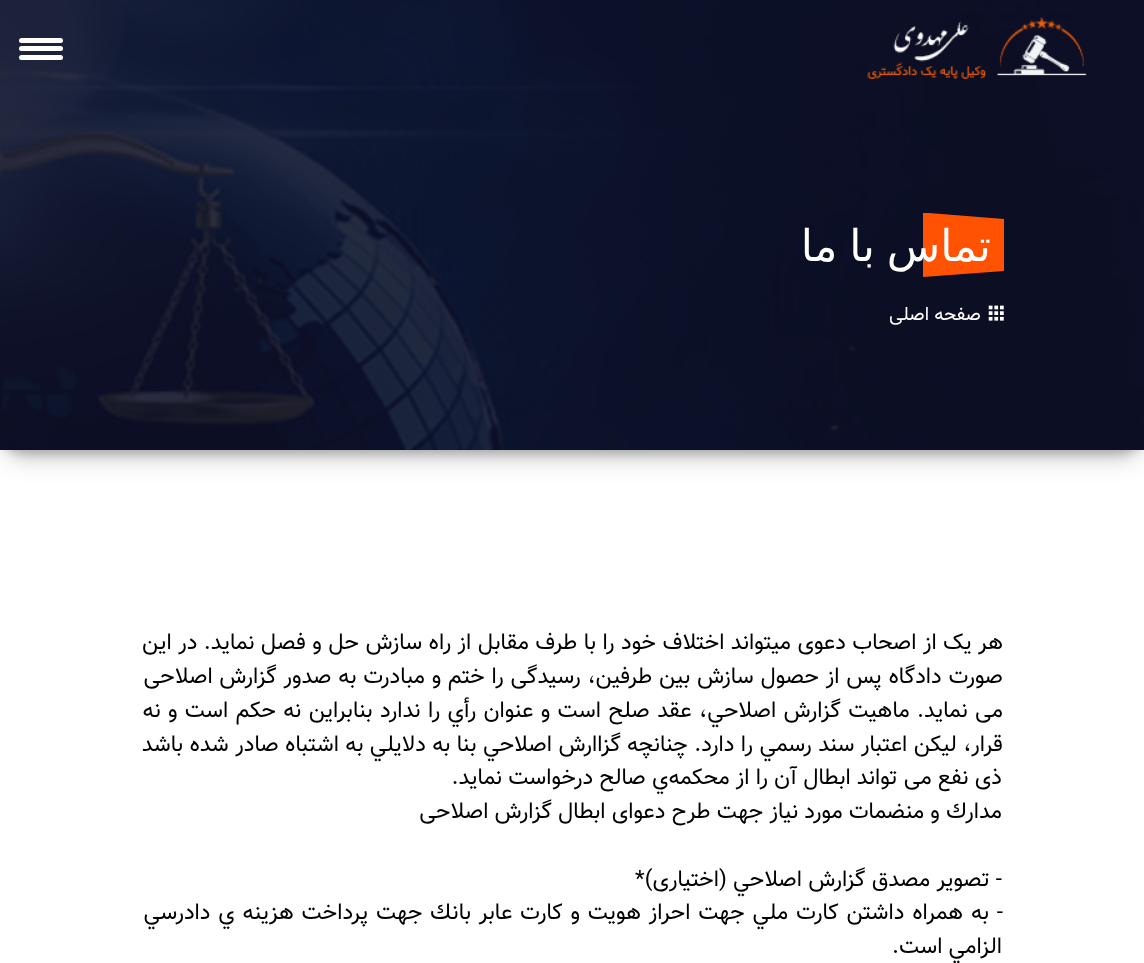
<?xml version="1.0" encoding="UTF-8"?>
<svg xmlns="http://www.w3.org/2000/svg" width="1144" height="963">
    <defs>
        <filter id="blur1" x="-50%" y="-200%" width="200%" height="500%"><feGaussianBlur stdDeviation="12.5"/></filter>
        <filter id="blur2" x="-50%" y="-200%" width="200%" height="500%"><feGaussianBlur stdDeviation="5"/></filter>
    </defs>
    <rect width="100%" height="100%" fill="#FFFFFF"/>
    <rect x="0" y="8" width="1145" height="450" rx="25" fill="#000000" fill-opacity="0.19" filter="url(#blur1)"/>
    <rect x="0" y="5" width="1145" height="450" rx="25" fill="#000000" fill-opacity="0.2" filter="url(#blur2)"/>
    <image x="0" y="0" width="1144" height="450" href="img_02.png"/>
    <image x="867" y="17" width="220" height="62" href="img_01.png"/>
    <rect x="19" y="38" width="44" height="5" rx="2.5" fill="#FFFFFF"/>
    <rect x="19" y="46" width="44" height="5" rx="2.5" fill="#FFFFFF"/>
    <rect x="19" y="55" width="44" height="5" rx="2.5" fill="#FFFFFF"/>
    <path d="M 923 213 V 277 L 1004 271 V 219 L 929 213 Z" fill="#FF5202"/>
    <text x="991" y="261" word-spacing="-2" font-family="DejaVu Sans" font-size="43.75" direction="rtl" fill="#FFFFFF">تماس با ما</text>
    <image x="988" y="305" width="16" height="16" href="img_03.png"/>
    <text x="981" y="320" font-family="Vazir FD" font-size="18.75" direction="rtl" fill="#FFFFFF">صفحه اصلی</text>
    <text font-family="Vazir FD" font-size="22.5" direction="rtl" fill="#000000">
        <tspan x="1003" y="649" word-spacing="0.25">هر یک از اصحاب دعوی میتواند اختلاف خود را با طرف مقابل از راه سازش حل و فصل نماید. در این</tspan>
        <tspan x="1003" y="683" word-spacing="0.6">صورت دادگاه پس از حصول سازش بین طرفین، رسیدگی را ختم و مبادرت به صدور گزارش اصلاحی</tspan>
        <tspan x="1003" y="717" word-spacing="1.2">می نماید. ماهيت گزارش اصلاحي، عقد صلح است و عنوان رأي را ندارد بنابراین نه حکم است و نه</tspan>
        <tspan x="1003" y="751" word-spacing="0.25">قرار، لیکن اعتبار سند رسمي را دارد. چنانچه</tspan>
    </text>
    <text x="621" y="751" word-spacing="0.25" font-family="Vazir FD" font-size="22.5" direction="rtl" fill="#000000">گزاارش اصلاحي بنا به دلايلي به اشتباه صادر شده باشد</text>
    <text font-family="Vazir FD" font-size="22.5" direction="rtl" fill="#000000">
        <tspan x="1002" y="784">ذی نفع می تواند ابطال آن را از محکمه‌ي صالح درخواست نماید.</tspan>
        <tspan x="1002" y="818">مدارك و منضمات مورد نياز جهت طرح دعوای ابطال گزارش اصلاحی</tspan>
    </text>
    <text x="1002" y="886" font-family="Vazir FD" font-size="22.5" direction="rtl" fill="#000000">- تصوير مصدق گزارش اصلاحي (اختیاری)*</text>
    <text x="1003" y="919" word-spacing="1.6" font-family="Vazir FD" font-size="22.5" direction="rtl" fill="#000000">- به همراه داشتن كارت ملي جهت احراز هويت و كارت عابر بانك جهت پرداخت هزينه ي دادرسي</text>
    <text x="1002" y="953" font-family="Vazir FD" font-size="22.5" direction="rtl" fill="#000000">الزامي است.</text>
</svg>
